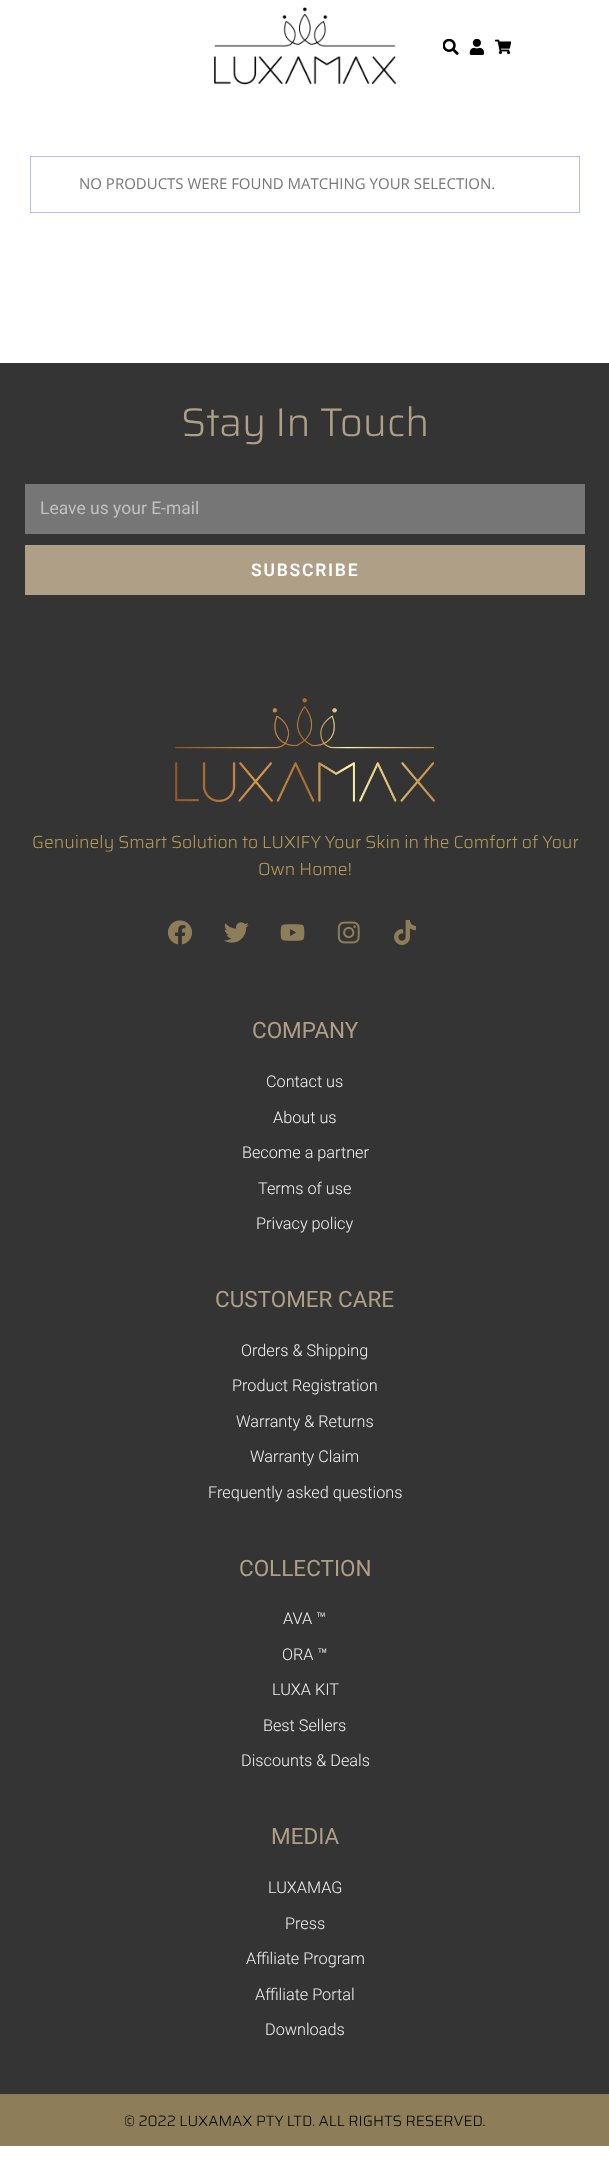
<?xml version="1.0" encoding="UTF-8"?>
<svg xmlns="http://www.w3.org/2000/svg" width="609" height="2160">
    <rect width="100%" height="100%" fill="#FFFFFF"/>
    <image x="214" y="7" width="183" height="78" href="img_01.png"/>
    <image x="443" y="39" width="16" height="16" href="img_02.png"/>
    <image x="469" y="39" width="15" height="16" href="img_03.png"/>
    <image x="495" y="39" width="16" height="16" href="img_04.png"/>
    <rect x="30.5" y="156.5" width="549" height="56" fill="none" stroke="#B1BEFD"/>
    <text x="79" y="189" font-family="Open Sans" font-size="15" fill="#777777">NO PRODUCTS WERE FOUND MATCHING YOUR SELECTION.</text>
    <rect x="0" y="363" width="609" height="1731" fill="#343434"/>
    <text x="181" y="436" font-family="Saira" font-size="40" font-weight="300" fill="#AE9F86">Stay In Touch</text>
    <rect x="25" y="484" width="560" height="50" fill="#767676"/>
    <text x="40" y="514" font-family="Roboto" font-size="17.5" fill="#C0C0C0">Leave us your E-mail</text>
    <rect x="25" y="545" width="560" height="50" fill="#AE9F86"/>
    <text x="251" y="576" font-family="Roboto" font-size="17.5" font-weight="600" letter-spacing="1.75" fill="#FFFFFF">SUBSCRIBE</text>
    <image x="175" y="698" width="260" height="104" href="img_05.png"/>
    <text x="32" y="848" font-family="Saira" font-size="17.5" font-weight="300" fill="#B49B57">Genuinely Smart Solution to LUXIFY Your Skin in the Comfort of Your</text>
    <text x="258" y="875" font-family="Saira" font-size="17.5" font-weight="300" fill="#B49B57">Own Home!</text>
    <image x="168" y="920" width="25" height="25" href="img_06.png"/>
    <image x="224" y="922" width="25" height="21" href="img_07.png"/>
    <image x="280" y="924" width="25" height="17" href="img_08.png"/>
    <image x="337" y="921" width="23" height="23" href="img_09.png"/>
    <image x="394" y="920" width="22" height="25" href="img_10.png"/>
    <text x="252" y="1038" font-family="Roboto" font-size="22.5" fill="#AE9F86">COMPANY</text>
    <text x="266" y="1087" font-family="Roboto" font-size="16.25" font-weight="300" fill="#F1F1F1">Contact us</text>
    <text x="273" y="1123" font-family="Roboto" font-size="16.25" font-weight="300" fill="#F1F1F1">About us</text>
    <text x="242" y="1158" font-family="Roboto" font-size="16.25" font-weight="300" fill="#F1F1F1">Become a partner</text>
    <text x="258" y="1194" font-family="Roboto" font-size="16.25" font-weight="300" fill="#F1F1F1">Terms of use</text>
    <text x="256" y="1229" font-family="Roboto" font-size="16.25" font-weight="300" fill="#F1F1F1">Privacy policy</text>
    <text x="215" y="1307" font-family="Roboto" font-size="22.5" fill="#AE9F86">CUSTOMER CARE</text>
    <text x="241" y="1356" font-family="Roboto" font-size="16.25" font-weight="300" fill="#F1F1F1">Orders &amp; Shipping</text>
    <text x="232" y="1391" font-family="Roboto" font-size="16.25" font-weight="300" fill="#F1F1F1">Product Registration</text>
    <text x="236" y="1427" font-family="Roboto" font-size="16.25" font-weight="300" fill="#F1F1F1">Warranty &amp; Returns</text>
    <text x="250" y="1462" font-family="Roboto" font-size="16.25" font-weight="300" fill="#F1F1F1">Warranty Claim</text>
    <text x="208" y="1498" font-family="Roboto" font-size="16.25" font-weight="300" fill="#F1F1F1">Frequently asked questions</text>
    <text x="239" y="1576" font-family="Roboto" font-size="22.5" fill="#AE9F86">COLLECTION</text>
    <text x="283" y="1624" font-family="Roboto" font-size="16.25" font-weight="300" fill="#F1F1F1">AVA ™</text>
    <text x="282" y="1660" font-family="Roboto" font-size="16.25" font-weight="300" fill="#F1F1F1">ORA ™</text>
    <text x="272" y="1695" font-family="Roboto" font-size="16.25" font-weight="300" fill="#F1F1F1">LUXA KIT</text>
    <text x="263" y="1731" font-family="Roboto" font-size="16.25" font-weight="300" fill="#F1F1F1">Best Sellers</text>
    <text x="241" y="1766" font-family="Roboto" font-size="16.25" font-weight="300" fill="#F1F1F1">Discounts &amp; Deals</text>
    <text x="271" y="1844" font-family="Roboto" font-size="22.5" fill="#AE9F86">MEDIA</text>
    <text x="268" y="1893" font-family="Roboto" font-size="16.25" font-weight="300" fill="#F1F1F1">LUXAMAG</text>
    <text x="285" y="1929" font-family="Roboto" font-size="16.25" font-weight="300" fill="#F1F1F1">Press</text>
    <text x="246" y="1964" font-family="Roboto" font-size="16.25" font-weight="300" fill="#F1F1F1">Affiliate Program</text>
    <text x="255" y="2000" font-family="Roboto" font-size="16.25" font-weight="300" fill="#F1F1F1">Affiliate Portal</text>
    <text x="265" y="2035" font-family="Roboto" font-size="16.25" font-weight="300" fill="#F1F1F1">Downloads</text>
    <rect x="0" y="2094" width="609" height="52" fill="#8E7D59"/>
    <text x="124" y="2126" font-family="Saira" font-size="15" font-weight="300" fill="#000000">© 2022 LUXAMAX PTY LTD. ALL RIGHTS RESERVED.</text>
</svg>
